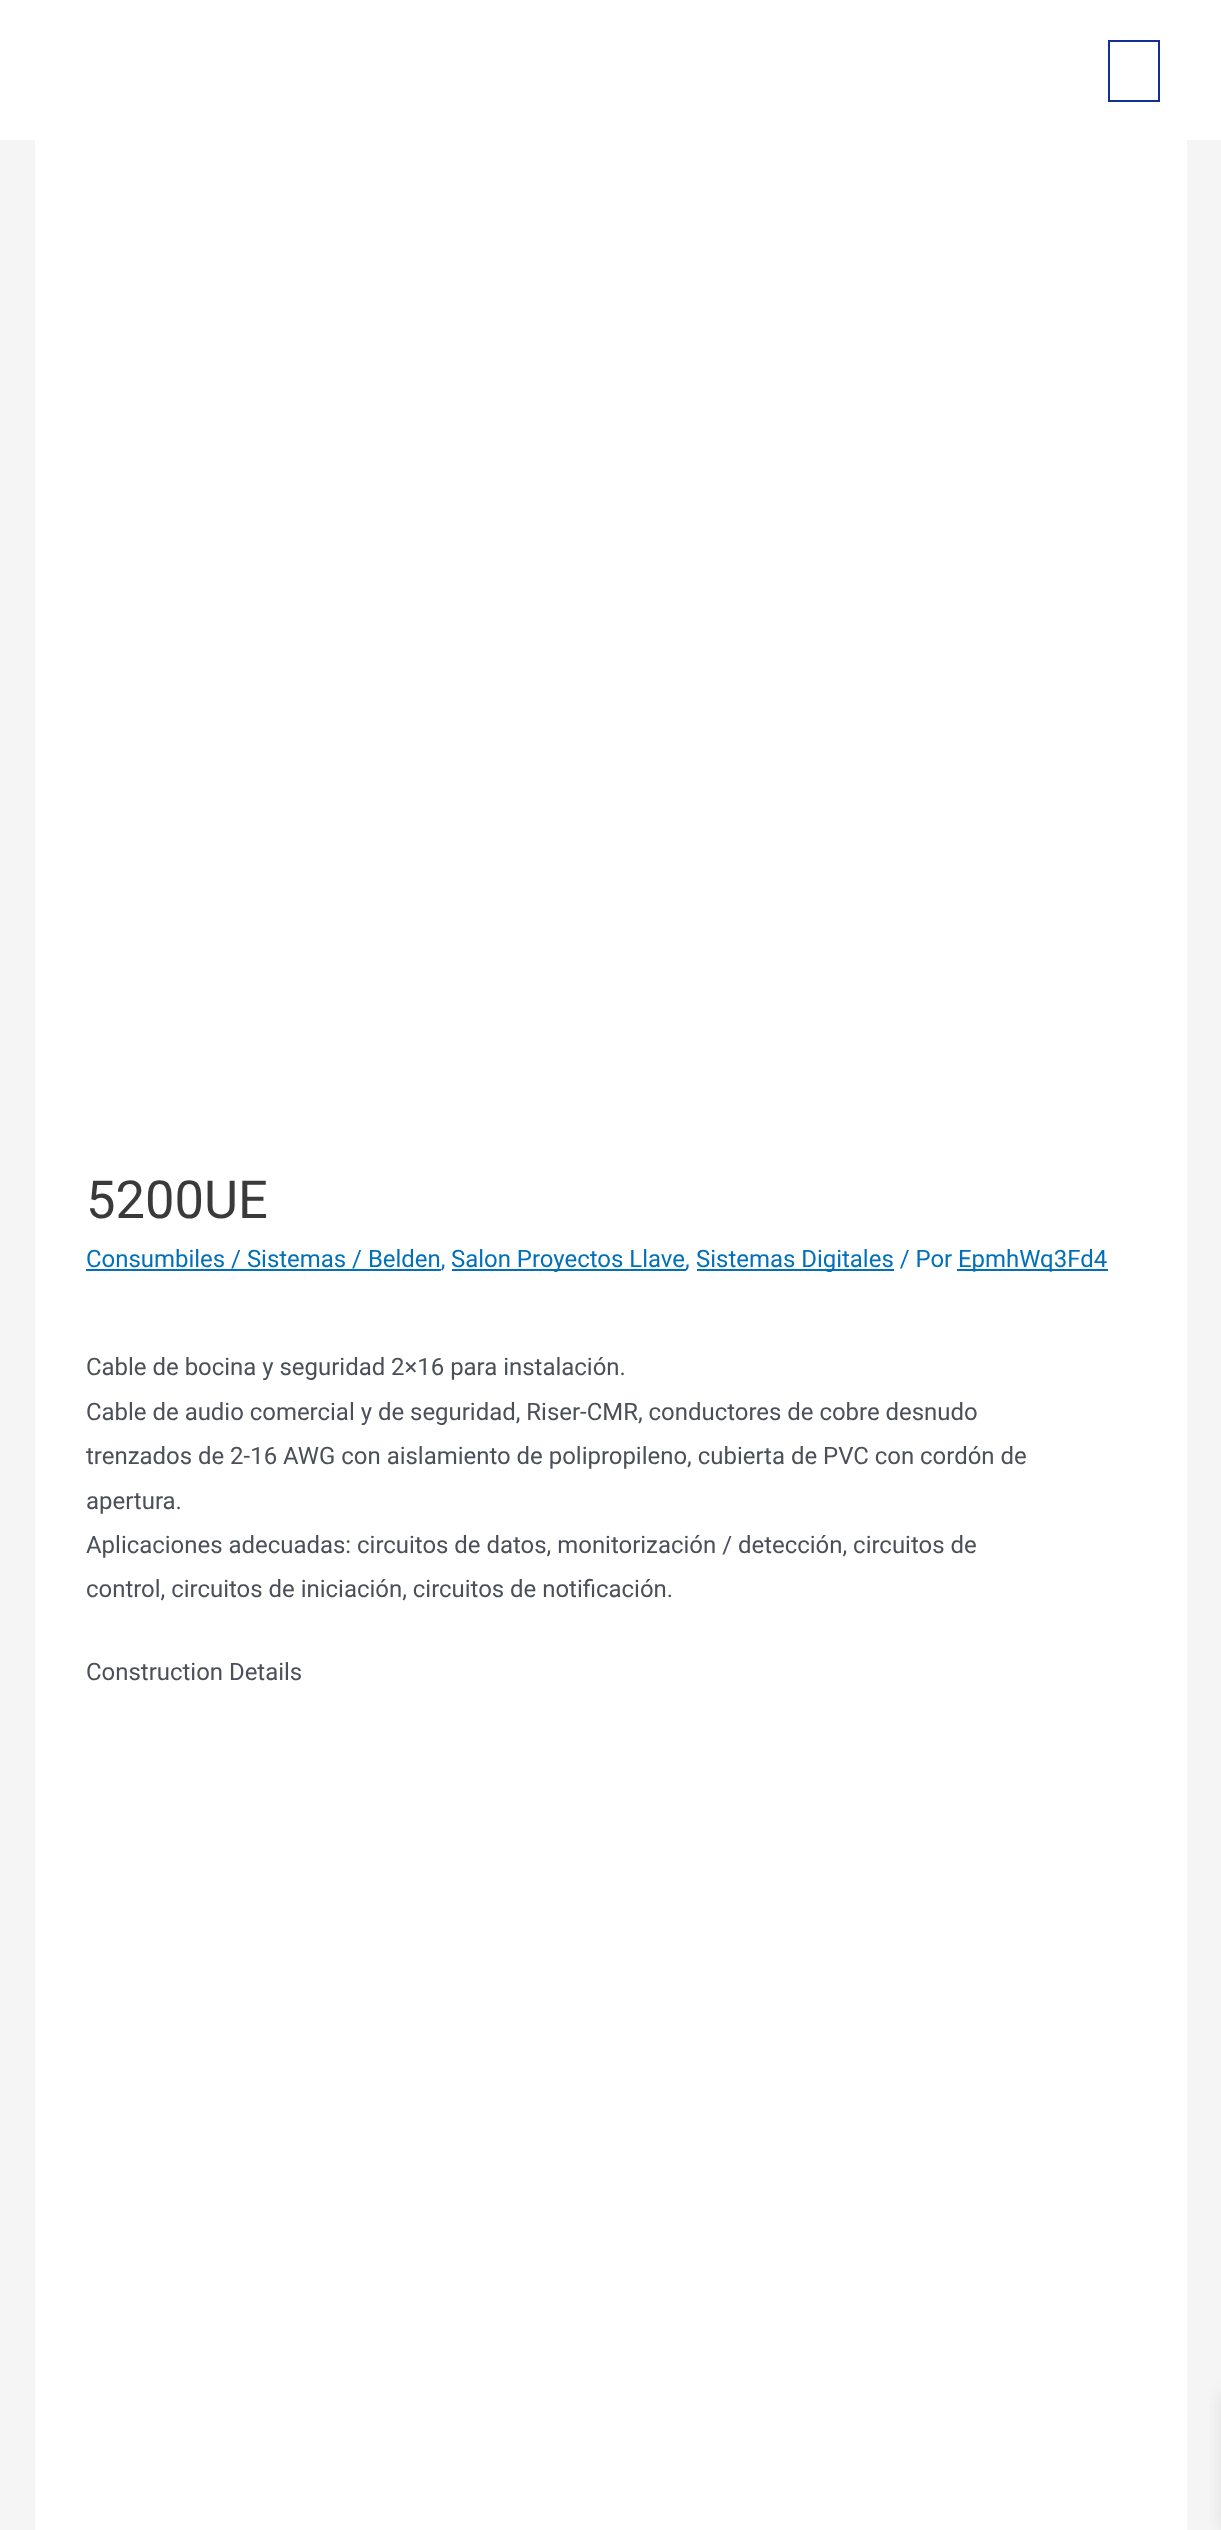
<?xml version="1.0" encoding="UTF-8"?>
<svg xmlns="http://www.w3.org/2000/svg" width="1221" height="2530">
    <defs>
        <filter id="blur1" x="-50%" y="-200%" width="200%" height="500%"><feGaussianBlur stdDeviation="9"/></filter>
    </defs>
    <rect width="100%" height="100%" fill="#F5F5F5"/>
    <rect x="0" y="0" width="1221" height="140" fill="#FFFFFF"/>
    <rect x="1109" y="41" width="50" height="60" fill="none" stroke="#113092" stroke-width="2"/>
    <rect x="35" y="140" width="1152" height="2390" fill="#FFFFFF"/>
    <text x="86" y="1218" font-family="Roboto" font-size="52.5" fill="#3A3A3A">5200UE</text>
    <rect x="86" y="1269" width="355" height="2" fill="#0170B9"/>
    <text x="86" y="1267" font-family="Roboto" font-size="23.95" fill="#0170B9">Consumbiles / Sistemas / Belden,</text>
    <rect x="452" y="1269" width="234" height="2" fill="#0170B9"/>
    <text x="451" y="1267" font-family="Roboto" font-size="23.95" fill="#0170B9">Salon Proyectos Llave,</text>
    <rect x="697" y="1269" width="197" height="2" fill="#0170B9"/>
    <text x="696" y="1267" font-family="Roboto" font-size="23.95" fill="#0170B9">Sistemas Digitales / Por</text>
    <rect x="957" y="1269" width="151" height="2" fill="#0170B9"/>
    <text x="958" y="1267" font-family="Roboto" font-size="23.95" fill="#0170B9">EpmhWq3Fd4</text>
    <text font-family="Roboto" font-size="23.95" fill="#4B4F58">
        <tspan x="86" y="1375">Cable de bocina y seguridad 2×16 para instalación.</tspan>
        <tspan x="86" y="1420">Cable de audio comercial y de seguridad, Riser-CMR, conductores de cobre desnudo</tspan>
        <tspan x="86" y="1464">trenzados de 2-16 AWG con aislamiento de polipropileno, cubierta de PVC con cordón de</tspan>
        <tspan x="86" y="1509">apertura.</tspan>
        <tspan x="86" y="1553">Aplicaciones adecuadas: circuitos de datos, monitorización / detección, circuitos de</tspan>
        <tspan x="86" y="1597">control, circuitos de iniciación, circuitos de notificación.</tspan>
    </text>
    <text x="86" y="1680" font-family="Roboto" font-size="23.95" fill="#4B4F58">Construction Details</text>
    <rect x="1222" y="2394" width="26" height="135" fill="#000000" fill-opacity="0.1" filter="url(#blur1)"/>
</svg>
